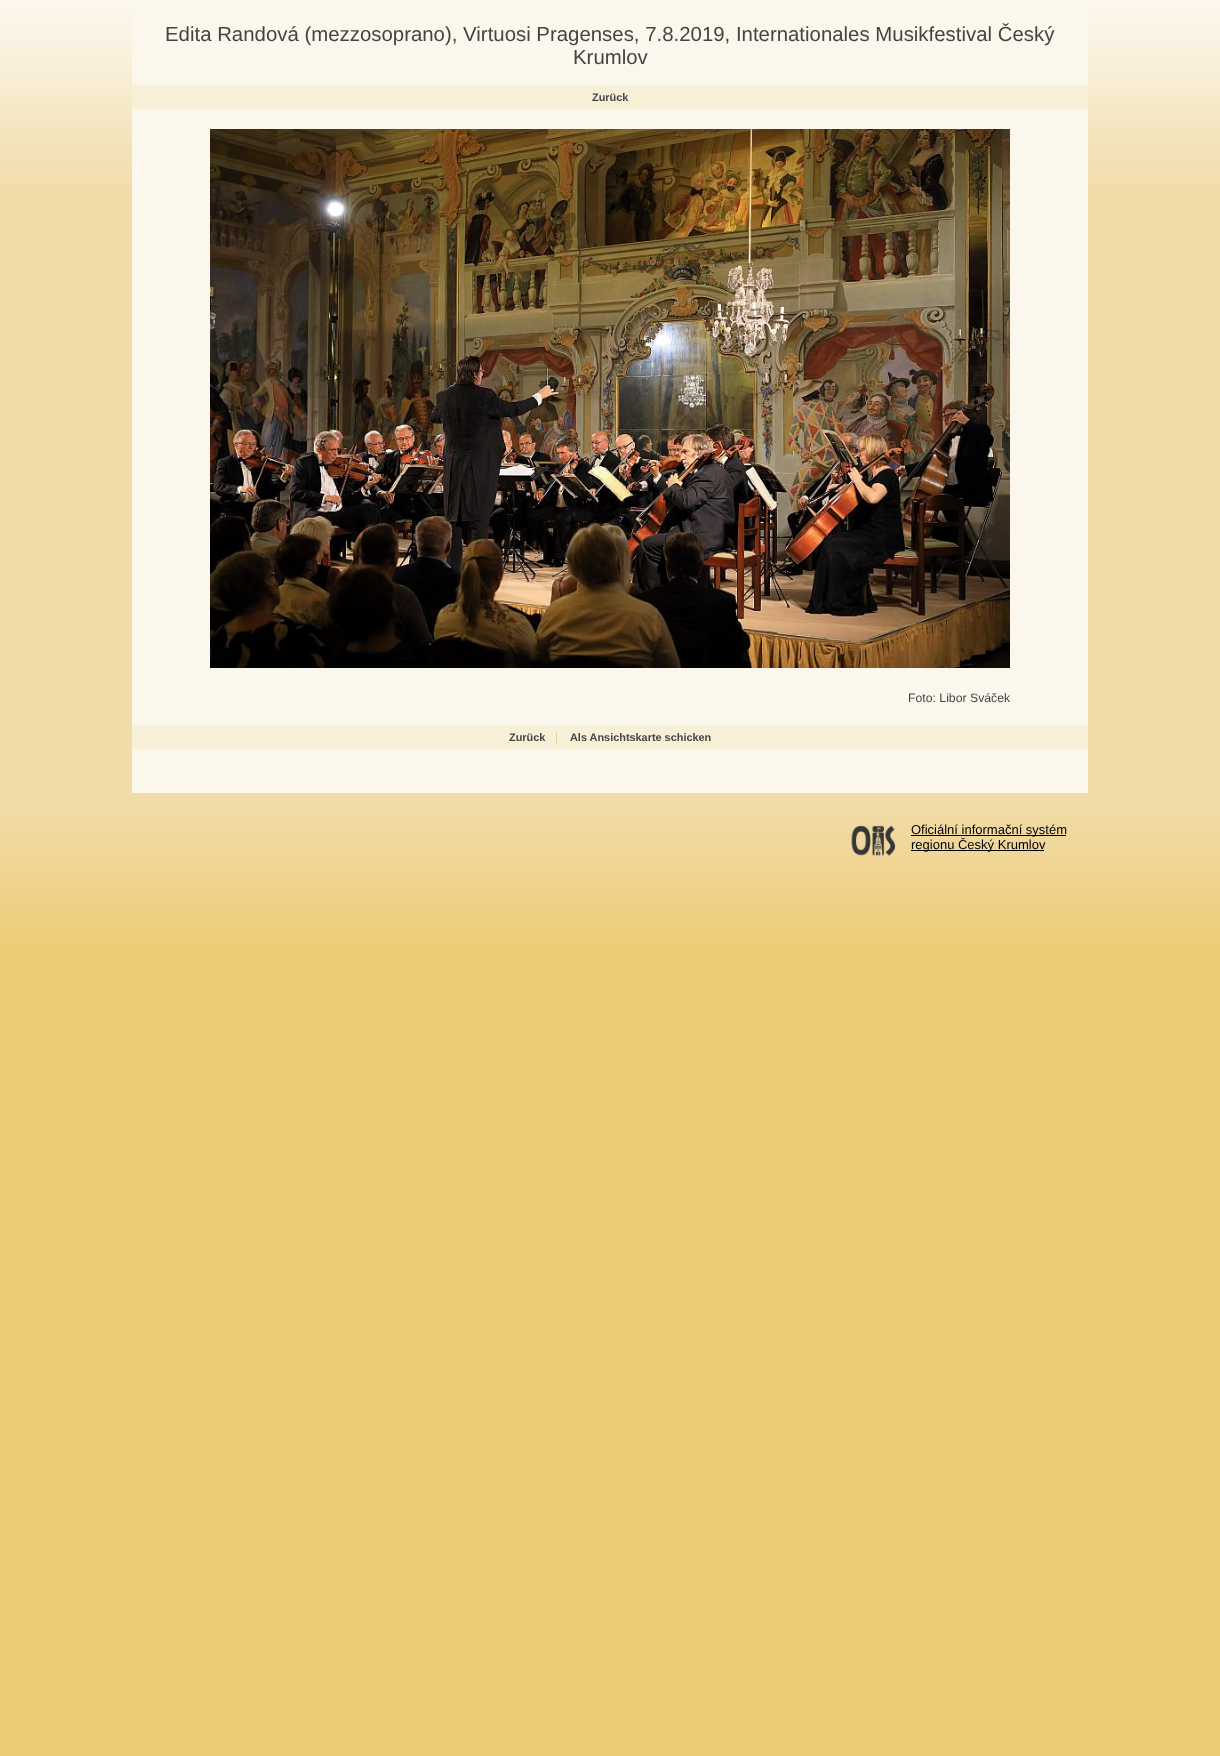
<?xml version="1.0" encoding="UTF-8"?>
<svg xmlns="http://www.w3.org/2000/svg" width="1220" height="1756">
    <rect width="100%" height="100%" fill="#EECB77"/>
    <rect x="0" y="184" width="1220" height="609" fill="#F1DCA9"/>
    <image x="0" y="0" width="1220" height="184" href="img_01.png"/>
    <rect x="132" y="8" width="956" height="785" fill="#FBF7ED"/>
    <text x="165" y="41" font-family="Liberation Sans" font-size="20.4" fill="#444444">Edita Randová (mezzosoprano), Virtuosi Pragenses, 7.8.2019, Internationales Musikfestival Český</text>
    <text x="573" y="64" font-family="Liberation Sans" font-size="20.4" fill="#444444">Krumlov</text>
    <rect x="132" y="85" width="956" height="24" fill="#F8EFD7"/>
    <text x="592" y="101" font-family="Liberation Sans" font-size="10.9" font-weight="700" fill="#444444">Zurück</text>
    <image x="210" y="129" width="800" height="539" href="img_02.png"/>
    <text x="908" y="702" font-family="Liberation Sans" font-size="12.25" fill="#444444">Foto: Libor Sváček</text>
    <rect x="132" y="725" width="956" height="24" fill="#F8EFD7"/>
    <text x="509" y="741" font-family="Liberation Sans" font-size="10.9" font-weight="700" fill="#444444">Zurück</text>
    <text x="555" y="741" font-family="Liberation Sans" font-size="10.9" fill="#E1CA97">|</text>
    <text x="570" y="741" font-family="Liberation Sans" font-size="10.9" font-weight="700" fill="#444444">Als Ansichtskarte schicken</text>
    <image x="0" y="793" width="1220" height="149" href="img_03.png"/>
    <image x="851" y="825" width="45" height="32" href="img_04.png"/>
    <rect x="911" y="835" width="155" height="1" fill="#000000"/>
    <text x="911" y="834" font-family="Liberation Sans" font-size="13" fill="#000000">Oficiální informační systém</text>
    <rect x="911" y="850" width="133" height="1" fill="#000000"/>
    <text x="911" y="849" font-family="Liberation Sans" font-size="13" fill="#000000">regionu Český Krumlov</text>
</svg>
